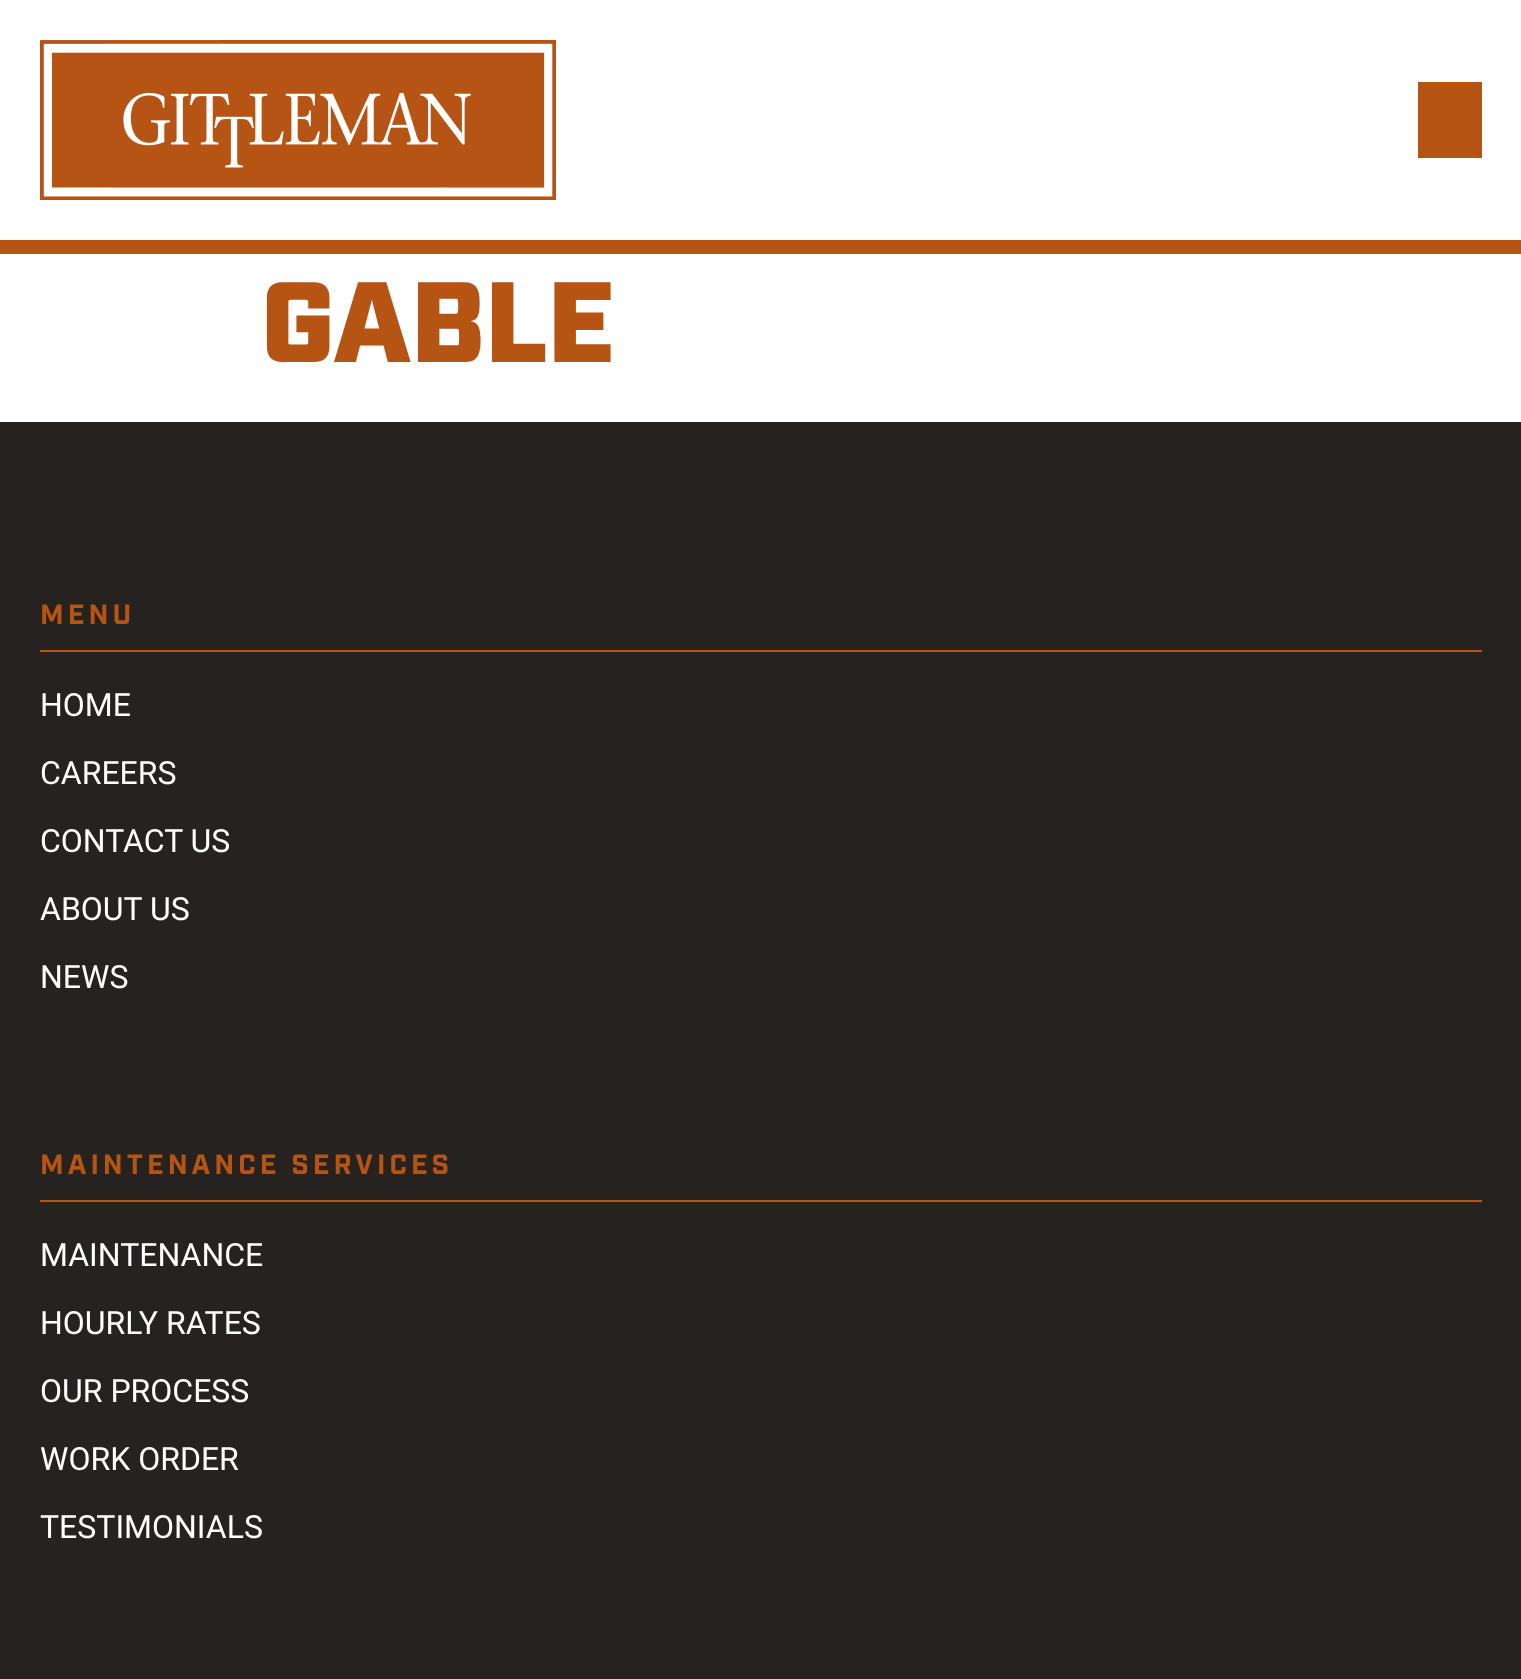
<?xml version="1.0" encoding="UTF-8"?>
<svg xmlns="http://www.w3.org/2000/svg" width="1521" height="1679">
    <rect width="100%" height="100%" fill="#FFFFFF"/>
    <rect x="0" y="240" width="1521" height="14" fill="#B55413"/>
    <image x="40" y="40" width="516" height="160" href="img_01.png"/>
    <rect x="1418" y="82" width="64" height="76" fill="#B55413"/>
    <text x="261" y="362" font-family="'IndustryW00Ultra'" font-size="114" font-weight="900" fill="#B55413">GABLE</text>
    <rect x="0" y="422" width="1521" height="1257" fill="#252220"/>
    <text x="40" y="624" font-family="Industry" font-size="28" font-weight="700" letter-spacing="4" fill="#B55413">MENU</text>
    <rect x="40" y="650" width="1442" height="2" fill="#B55413"/>
    <text x="40" y="716" font-family="Roboto" font-size="32" fill="#FFFFFF">HOME</text>
    <text x="40" y="784" font-family="Roboto" font-size="32" fill="#FFFFFF">CAREERS</text>
    <text x="40" y="852" font-family="Roboto" font-size="32" fill="#FFFFFF">CONTACT US</text>
    <text x="40" y="920" font-family="Roboto" font-size="32" fill="#FFFFFF">ABOUT US</text>
    <text x="40" y="988" font-family="Roboto" font-size="32" fill="#FFFFFF">NEWS</text>
    <text x="40" y="1174" font-family="Industry" font-size="28" font-weight="700" letter-spacing="4" fill="#B55413">MAINTENANCE SERVICES</text>
    <rect x="40" y="1200" width="1442" height="2" fill="#B55413"/>
    <text x="40" y="1266" font-family="Roboto" font-size="32" fill="#FFFFFF">MAINTENANCE</text>
    <text x="40" y="1334" font-family="Roboto" font-size="32" fill="#FFFFFF">HOURLY RATES</text>
    <text x="40" y="1402" font-family="Roboto" font-size="32" fill="#FFFFFF">OUR PROCESS</text>
    <text x="40" y="1470" font-family="Roboto" font-size="32" fill="#FFFFFF">WORK ORDER</text>
    <text x="40" y="1538" font-family="Roboto" font-size="32" fill="#FFFFFF">TESTIMONIALS</text>
</svg>
